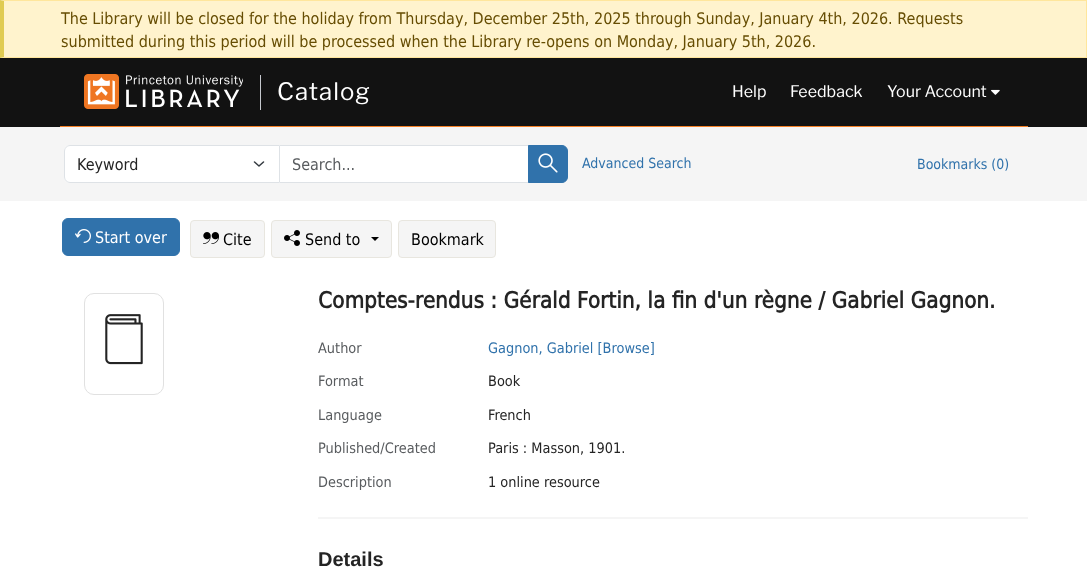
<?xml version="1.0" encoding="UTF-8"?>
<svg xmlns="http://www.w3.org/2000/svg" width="1087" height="588">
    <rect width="100%" height="100%" fill="#F5F5F5"/>
    <rect x="4" y="1" width="1082" height="56" fill="#FFF3CD"/>
    <path d="M 0 0 H 1087 L 1086 1 H 4 Z" fill="#FFE69C"/>
    <rect x="1086" y="0" width="1" height="58" fill="#FFE69C"/>
    <path d="M 1087 58 H 0 L 4 57 H 1086 Z" fill="#FFE69C"/>
    <path d="M 0 58 V 0 L 4 1 V 57 Z" fill="#E0CB52"/>
    <text font-family="DejaVu Sans" font-size="16" fill="#664D03">
        <tspan x="61" y="24">The Library will be closed for the holiday from Thursday, December 25th, 2025 through Sunday, January 4th, 2026. Requests</tspan>
        <tspan x="61" y="47">submitted during this period will be processed when the Library re-opens on Monday, January 5th, 2026.</tspan>
    </text>
    <rect x="0" y="58" width="1087" height="69" fill="#121212"/>
    <rect x="60" y="126" width="968" height="1" fill="#F58025"/>
    <image x="84" y="74" width="159" height="35" href="img_01.png"/>
    <rect x="260" y="75" width="1" height="35" fill="#C5C8CE"/>
    <text x="277" y="100" font-family="Libre Franklin" font-size="24" letter-spacing="1" fill="#FFFFFF">Catalog</text>
    <text x="732" y="97" font-family="Libre Franklin" font-size="16" fill="#FFFFFF">Help</text>
    <text x="790" y="97" font-family="Libre Franklin" font-size="16" fill="#FFFFFF">Feedback</text>
    <image x="991" y="89" width="9" height="6" href="img_02.png"/>
    <text x="887" y="97" font-family="Libre Franklin" font-size="16" fill="#FFFFFF">Your Account</text>
    <rect x="279.5" y="145.5" width="249" height="37" fill="#FFFFFF" stroke="#DEE2E6"/>
    <path d="M 70 145 H 280 V 183 H 70 C 66.5 183 64 180.5 64 177 V 151 C 64 147.5 66.5 145 70 145 Z" fill="#FFFFFF"/>
    <path d="M 254.5 162 L 259 166 L 263.5 162" fill="none" stroke="#343A40" stroke-width="1.5" stroke-linecap="round" stroke-linejoin="round"/>
    <path d="M 70 145.5 H 279.5 V 182.5 H 70 C 67 182.5 64.5 180 64.5 177 V 151 C 64.5 148 67 145.5 70 145.5 Z" fill="none" stroke="#DEE2E6"/>
    <text x="77" y="170" font-family="DejaVu Sans" font-size="16" fill="#242424">Keyword</text>
    <text x="292" y="170" font-family="DejaVu Sans" font-size="16" fill="#595C5F">Search...</text>
    <path d="M 528.5 145.5 H 562 C 565 145.5 567.5 148 567.5 151 V 177 C 567.5 180 565 182.5 562 182.5 H 528.5 Z" fill="#3072AB" stroke="#3072AB"/>
    <image x="538" y="153" width="20" height="20" href="img_03.png"/>
    <text x="582" y="168" font-family="DejaVu Sans" font-size="14" fill="#3072AB">Advanced Search</text>
    <text x="917" y="169" font-family="DejaVu Sans" font-size="14" fill="#3072AB">Bookmarks (0)</text>
    <rect x="0" y="201" width="1087" height="387" fill="#FFFFFF"/>
    <rect x="62.5" y="218.5" width="117" height="37" rx="5.5" fill="#3072AB" stroke="#3072AB"/>
    <image x="75" y="229" width="16" height="14" href="img_04.png"/>
    <text x="95" y="243" font-family="DejaVu Sans" font-size="16" fill="#FFFFFF">Start over</text>
    <rect x="190.5" y="220.5" width="74" height="37" rx="3.5" fill="#F5F5F5" stroke="#E8E6DF"/>
    <image x="203" y="232" width="16" height="12" href="img_05.png"/>
    <text x="223" y="245" font-family="DejaVu Sans" font-size="16" fill="#000000">Cite</text>
    <rect x="271.5" y="220.5" width="120" height="37" rx="3.5" fill="#F5F5F5" stroke="#E8E6DF"/>
    <image x="284" y="230" width="16" height="16" href="img_06.png"/>
    <text x="305" y="245" font-family="DejaVu Sans" font-size="16" fill="#000000">Send to</text>
    <path d="M 371 237 H 379 L 375 241 Z" fill="#000000"/>
    <rect x="398.5" y="220.5" width="97" height="37" rx="3.5" fill="#F5F5F5" stroke="#E8E6DF"/>
    <text x="411" y="245" font-family="DejaVu Sans" font-size="16" fill="#000000">Bookmark</text>
    <rect x="84.5" y="293.5" width="79" height="101" rx="9.5" fill="none" stroke="#E1E1E1"/>
    <image x="105" y="314" width="38" height="51" href="img_07.png"/>
    <text x="318" y="308" font-family="DejaVu Sans" font-size="22.4" font-weight="700" fill="#242424">Comptes-rendus : Gérald Fortin, la fin d'un règne / Gabriel Gagnon.</text>
    <rect x="318" y="517" width="710" height="2" fill="#F5F5F5"/>
    <text x="318" y="353" font-family="DejaVu Sans" font-size="14.4" fill="#595C5F">Author</text>
    <text x="488" y="353" font-family="DejaVu Sans" font-size="14.4" fill="#3072AB">Gagnon, Gabriel [Browse]</text>
    <text x="318" y="386" font-family="DejaVu Sans" font-size="14.4" fill="#595C5F">Format</text>
    <text x="488" y="386" font-family="DejaVu Sans" font-size="14.4" fill="#242424">Book</text>
    <text x="318" y="420" font-family="DejaVu Sans" font-size="14.4" fill="#595C5F">Language</text>
    <text x="488" y="420" font-family="DejaVu Sans" font-size="14.4" fill="#242424">French</text>
    <text x="318" y="453" font-family="DejaVu Sans" font-size="14.4" fill="#595C5F">Published/Created</text>
    <text x="488" y="453" font-family="DejaVu Sans" font-size="14.4" fill="#242424">Paris : Masson, 1901.</text>
    <text x="318" y="487" font-family="DejaVu Sans" font-size="14.4" fill="#595C5F">Description</text>
    <text x="488" y="487" font-family="DejaVu Sans" font-size="14.4" fill="#242424">1 online resource</text>
    <text x="318" y="566" font-family="Liberation Sans" font-size="20" font-weight="700" fill="#242424">Details</text>
</svg>
